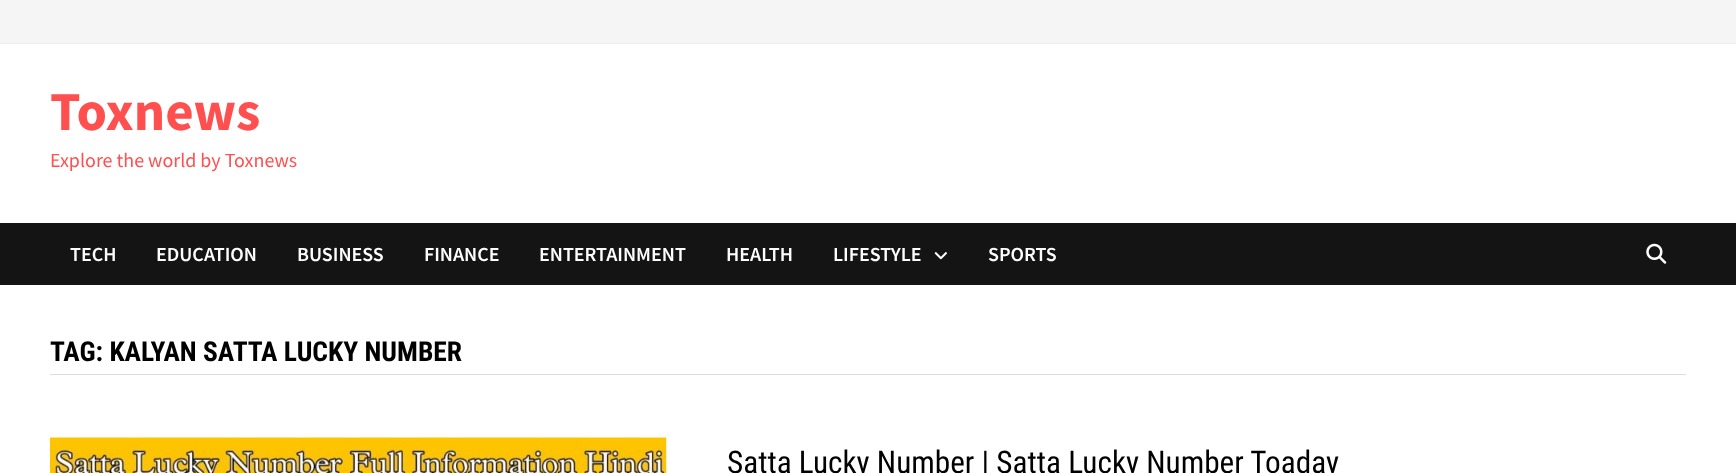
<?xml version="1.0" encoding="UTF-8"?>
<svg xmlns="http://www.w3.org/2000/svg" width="1736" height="473">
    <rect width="100%" height="100%" fill="#FFFFFF"/>
    <rect x="0" y="0" width="1736" height="43" fill="#F5F5F5"/>
    <rect x="0" y="43" width="1736" height="1" fill="#EEEEEE"/>
    <text x="50" y="130" font-family="Source Sans Pro" font-size="55" font-weight="700" fill="#FF4F4F">Toxnews</text>
    <text x="50" y="167" font-family="Source Sans Pro" font-size="20" fill="#FF4F4F">Explore the world by Toxnews</text>
    <rect x="0" y="223" width="1736" height="62" fill="#141414"/>
    <text x="70" y="261" font-family="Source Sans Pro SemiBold" font-size="20" font-weight="600" fill="#FFFFFF">TECH</text>
    <text x="156" y="261" font-family="Source Sans Pro SemiBold" font-size="20" font-weight="600" fill="#FFFFFF">EDUCATION</text>
    <text x="297" y="261" font-family="Source Sans Pro SemiBold" font-size="20" font-weight="600" fill="#FFFFFF">BUSINESS</text>
    <text x="424" y="261" font-family="Source Sans Pro SemiBold" font-size="20" font-weight="600" fill="#FFFFFF">FINANCE</text>
    <text x="539" y="261" font-family="Source Sans Pro SemiBold" font-size="20" font-weight="600" fill="#FFFFFF">ENTERTAINMENT</text>
    <text x="726" y="261" font-family="Source Sans Pro SemiBold" font-size="20" font-weight="600" fill="#FFFFFF">HEALTH</text>
    <text x="833" y="261" font-family="Source Sans Pro SemiBold" font-size="20" font-weight="600" fill="#FFFFFF">LIFESTYLE</text>
    <image x="934" y="252" width="13" height="8" href="img_01.png"/>
    <text x="988" y="261" font-family="Source Sans Pro SemiBold" font-size="20" font-weight="600" fill="#FFFFFF">SPORTS</text>
    <image x="1646" y="243" width="21" height="21" href="img_02.png"/>
    <rect x="50" y="374" width="1636" height="1" fill="#DDDDDD"/>
    <text x="50" y="361" font-family="Roboto Condensed" font-size="27.5" font-weight="700" fill="#000000">TAG: KALYAN SATTA LUCKY NUMBER</text>
    <image x="50" y="437" width="617" height="36" href="img_03.png"/>
    <text x="727" y="473" font-family="Roboto Condensed" font-size="31.25" fill="#000000">Satta Lucky Number | Satta Lucky Number Toaday</text>
</svg>
